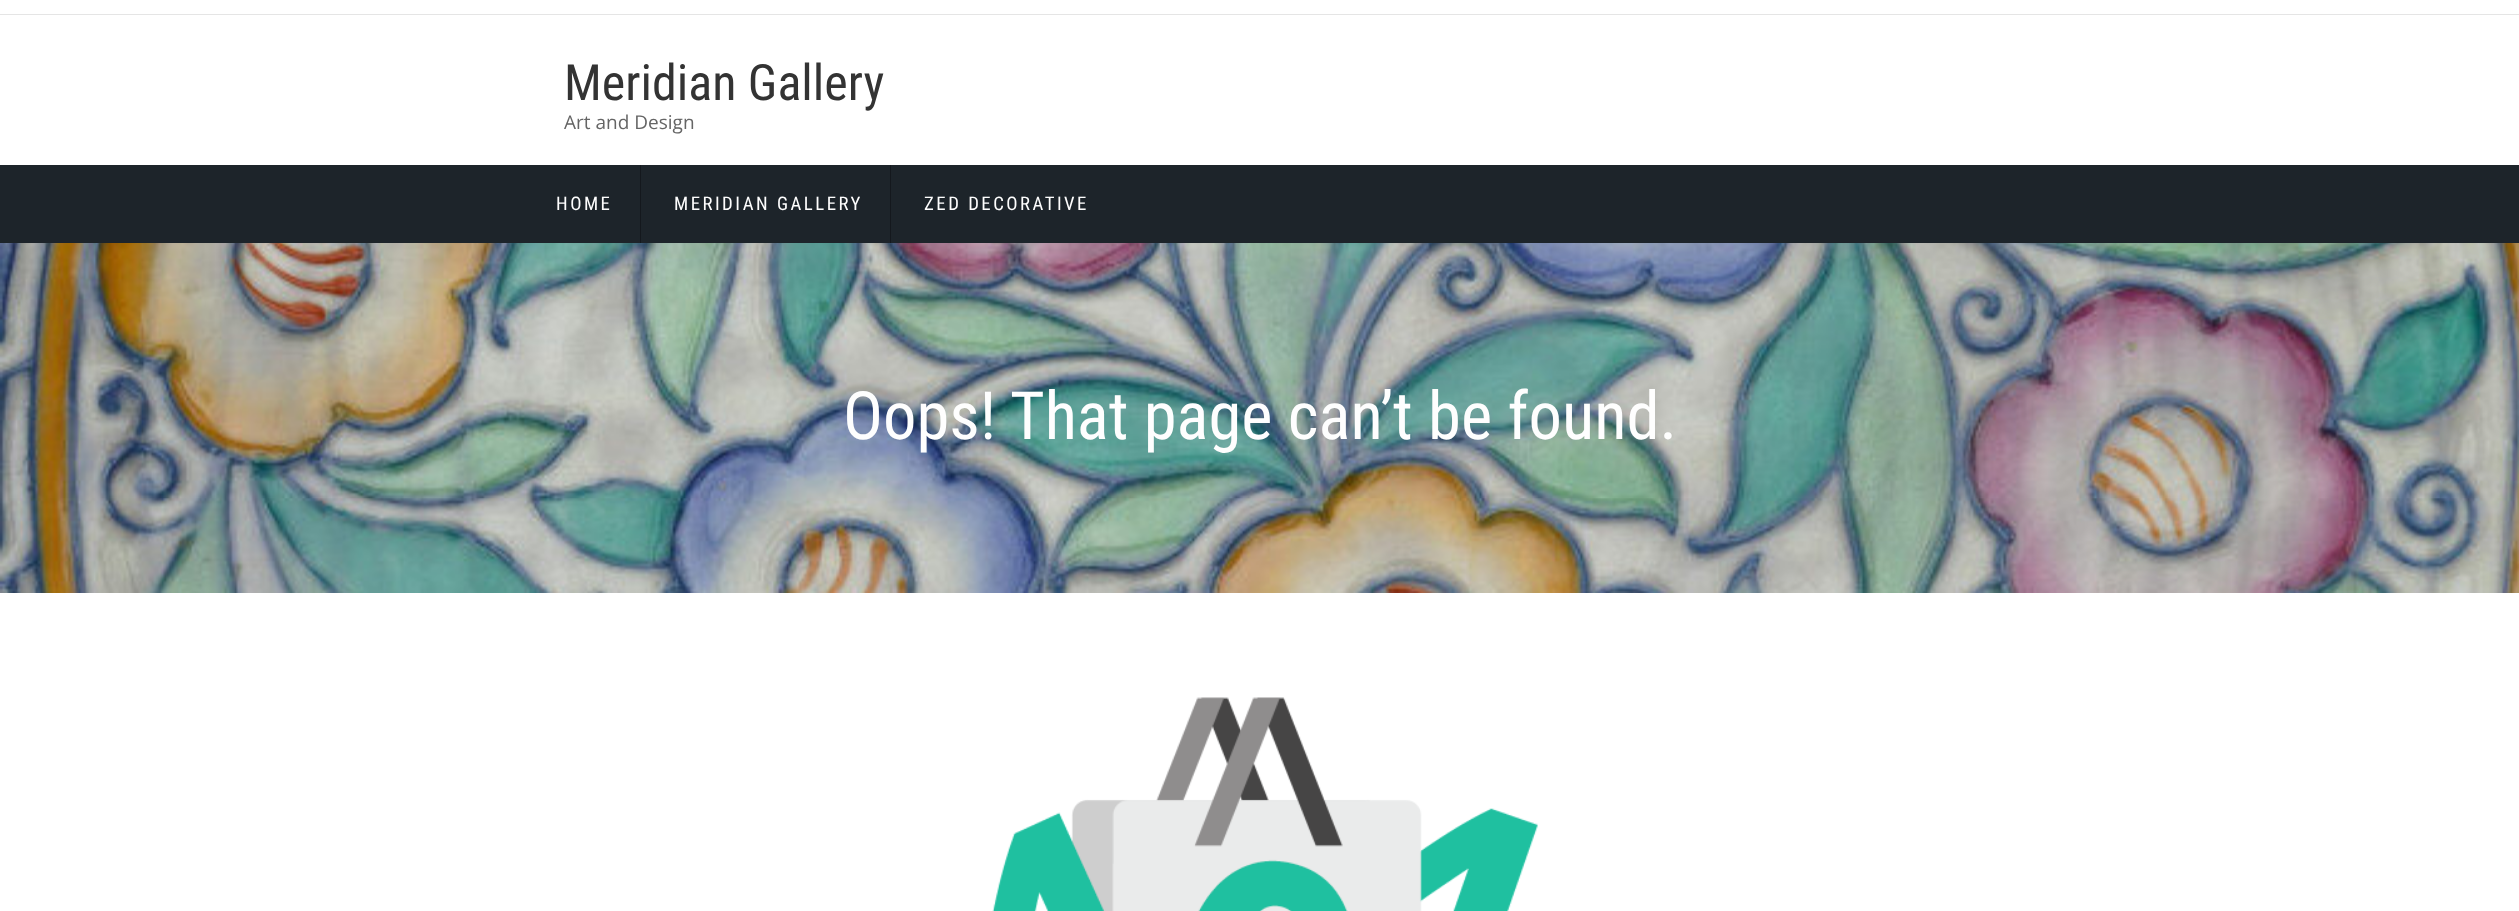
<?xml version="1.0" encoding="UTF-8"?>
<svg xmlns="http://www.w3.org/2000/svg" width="2519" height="911">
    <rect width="100%" height="100%" fill="#FFFFFF"/>
    <rect x="0" y="14" width="2519" height="1" fill="#E5E5E5"/>
    <text x="564" y="100" font-family="Roboto Condensed" font-size="50" fill="#333333">Meridian Gallery</text>
    <text x="564" y="129" font-family="Open Sans" font-size="19" fill="#656565">Art and Design</text>
    <rect x="0" y="165" width="2519" height="78" fill="#1D242A"/>
    <rect x="640" y="165" width="1" height="78" fill="#14181D"/>
    <text x="556" y="210" font-family="Roboto Condensed" font-size="18.75" letter-spacing="2.5" fill="#FEFEFE">HOME</text>
    <rect x="890" y="165" width="1" height="78" fill="#14181D"/>
    <text x="674" y="210" font-family="Roboto Condensed" font-size="18.75" letter-spacing="2.5" fill="#FEFEFE">MERIDIAN GALLERY</text>
    <text x="924" y="210" font-family="Roboto Condensed" font-size="18.75" letter-spacing="2.5" fill="#FEFEFE">ZED DECORATIVE</text>
    <image x="0" y="243" width="2519" height="350" href="img_01.png"/>
    <text x="843" y="439" font-family="Roboto Condensed" font-size="66.6" fill="#FEFEFE">Oops! That page can’t be found.</text>
    <image x="992" y="697" width="546" height="214" href="img_02.png"/>
</svg>
